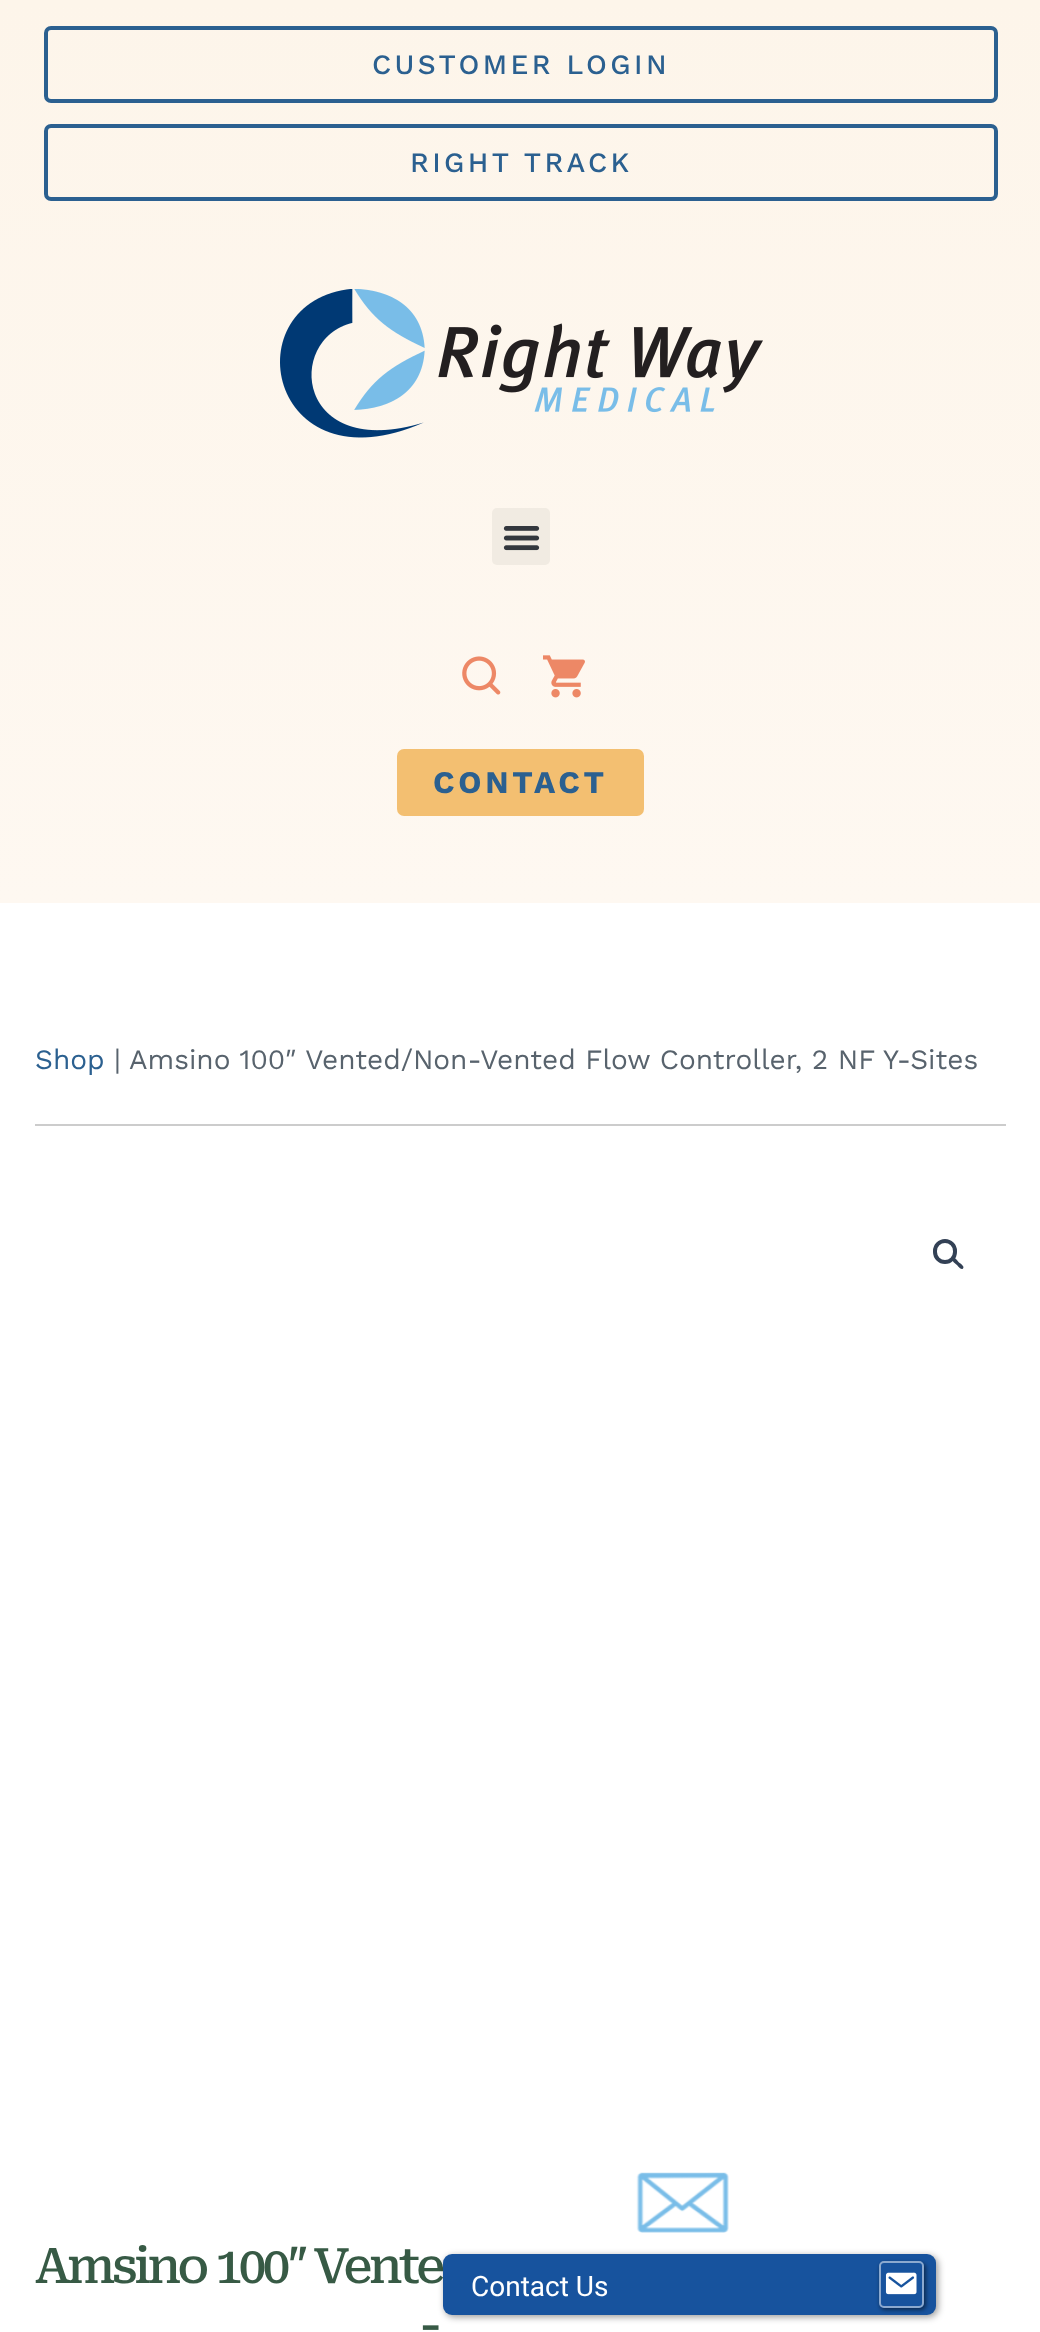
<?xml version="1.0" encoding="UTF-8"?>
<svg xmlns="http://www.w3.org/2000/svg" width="1040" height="2332">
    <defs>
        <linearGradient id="g1" gradientUnits="userSpaceOnUse" x1="521" y1="0" x2="521" y2="903"><stop offset="0" stop-color="#FDF5EA"/><stop offset="1" stop-color="#FEF8F1"/></linearGradient>
        <filter id="blur1" x="-50%" y="-200%" width="200%" height="500%"><feGaussianBlur stdDeviation="3.5"/></filter>
        <clipPath id="clip1"><path d="M 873 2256 H 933 V 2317 H 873 Z M 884 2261 H 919 C 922 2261 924 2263 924 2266 V 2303 C 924 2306 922 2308 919 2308 H 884 C 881 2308 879 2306 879 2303 V 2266 C 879 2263 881 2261 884 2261 Z" clip-rule="evenodd"/></clipPath>
        <filter id="blur2" x="-50%" y="-200%" width="200%" height="500%"><feGaussianBlur stdDeviation="2"/></filter>
    </defs>
    <rect width="100%" height="100%" fill="#FFFFFF"/>
    <rect x="0" y="0" width="1040" height="903" fill="url(#g1)"/>
    <rect x="46" y="28" width="950" height="73" rx="5" fill="none" stroke="#2B6090" stroke-width="4"/>
    <text x="372" y="74" font-family="Work Sans" font-size="28" font-weight="500" letter-spacing="3.4" fill="#2B6090">CUSTOMER LOGIN</text>
    <rect x="46" y="126" width="950" height="73" rx="5" fill="none" stroke="#2B6090" stroke-width="4"/>
    <text x="410" y="172" font-family="Work Sans" font-size="28" font-weight="500" letter-spacing="3.4" fill="#2B6090">RIGHT TRACK</text>
    <image x="280" y="289" width="483" height="149" href="img_01.png"/>
    <rect x="492" y="508" width="58" height="57" rx="5" fill="#F1EBE2"/>
    <image x="503" y="526" width="37" height="25" href="img_02.png"/>
    <image x="462" y="656" width="39" height="39" href="img_03.png"/>
    <image x="543" y="655" width="42" height="43" href="img_04.png"/>
    <rect x="397" y="749" width="247" height="67" rx="7" fill="#F3BF71"/>
    <text x="433" y="793" font-family="Work Sans" font-size="31.5" font-weight="700" letter-spacing="3.75" fill="#2B6090">CONTACT</text>
    <text x="35" y="1069" font-family="Work Sans" font-size="28" fill="#2B6090">Shop</text>
    <text x="114" y="1069" font-family="Work Sans" font-size="28" fill="#58636D">|</text>
    <text x="129" y="1069" font-family="Work Sans" font-size="28" fill="#58636D">Amsino 100″ Vented/Non-Vented Flow Controller, 2 NF Y-Sites</text>
    <rect x="35" y="1124" width="971" height="2" fill="#CCCCCC"/>
    <rect x="935" y="1241" width="20" height="21" rx="10" fill="none" stroke="#334155" stroke-width="4"/>
    <path d="M 953 1258.5 C 955 1256.5 958 1261.5 959 1262.5 C 960.5 1263.5 965 1266.5 963 1268.5 C 961 1270.5 958 1266 957 1265 C 955.5 1264 951 1260.5 953 1258.5 Z" fill="#334155"/>
    <text x="35" y="2283" font-family="Roboto Serif" font-size="49" font-weight="500" letter-spacing="-3.5" fill="#375A45">Amsino 100″ Vente</text>
    <text x="419" y="2342" font-family="Roboto Serif" font-size="49" font-weight="500" letter-spacing="-3.5" fill="#375A45">-</text>
    <rect x="445" y="2256" width="493" height="61" rx="9" fill="#000000" fill-opacity="0.4" filter="url(#blur1)"/>
    <image x="636" y="2172" width="93" height="61" href="img_05.png"/>
    <rect x="443" y="2254" width="493" height="61" rx="9" fill="#17539E"/>
    <text x="471" y="2296" font-family="Roboto" font-size="28" fill="#FFFFFF">Contact Us</text>
    <g clip-path="url(#clip1)">
        <rect x="880" y="2263" width="46" height="47" rx="5" fill="#000000" fill-opacity="0.5" filter="url(#blur2)"/>
    </g>
    <rect x="880" y="2262" width="43" height="45" rx="4" fill="none" stroke="#FFFFFF" stroke-opacity="0.5" stroke-width="2"/>
    <image x="885" y="2272" width="32" height="23" href="img_06.png"/>
</svg>
